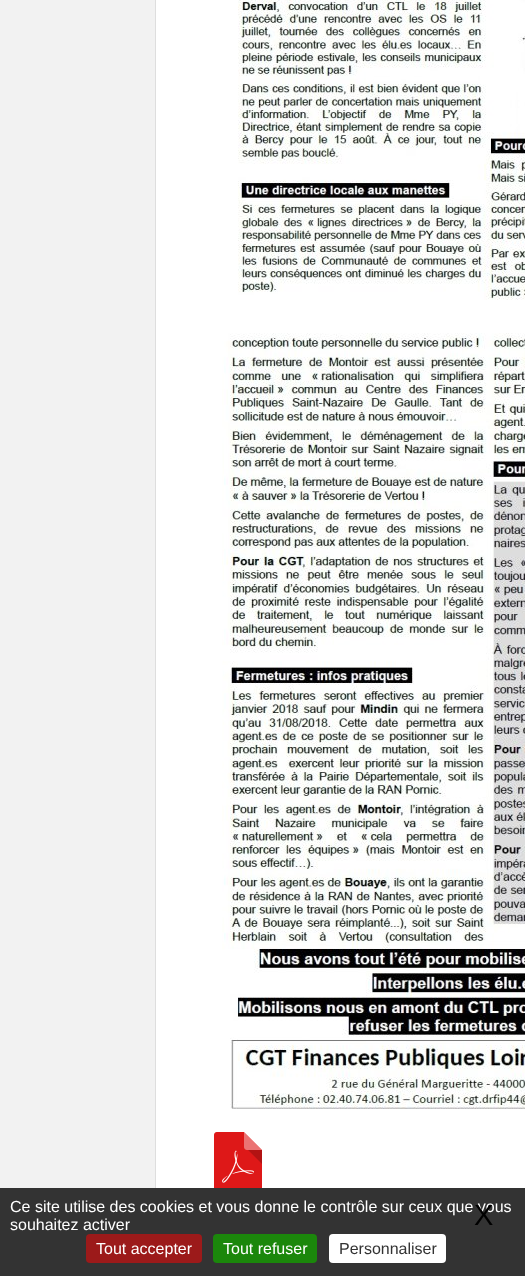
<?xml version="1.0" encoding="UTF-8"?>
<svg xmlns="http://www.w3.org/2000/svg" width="525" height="1276">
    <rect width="100%" height="100%" fill="#F2F2F2"/>
    <rect x="156" y="0" width="369" height="1188" fill="#FFFFFF"/>
    <rect x="155.5" y="-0.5" width="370" height="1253" fill="none" stroke="#DEDEDE"/>
    <image x="238" y="0" width="287" height="300" href="img_01.png"/>
    <image x="222" y="333" width="303" height="776" href="img_02.png"/>
    <image x="214" y="1132" width="48" height="56" href="img_03.png"/>
    <rect x="0" y="1188" width="525" height="88" fill="#333333"/>
    <text font-family="Liberation Sans" font-size="16" fill="#FFFFFF">
        <tspan x="10" y="1212">Ce site utilise des cookies et vous donne le contrôle sur ceux que vous</tspan>
        <tspan x="10" y="1230">souhaitez activer</tspan>
    </text>
    <text x="474" y="1225" font-family="Liberation Sans" font-size="29" fill="#000000">X</text>
    <rect x="86" y="1234" width="116" height="29" rx="4" fill="#9C1A1A"/>
    <text x="96" y="1254" font-family="Liberation Sans" font-size="16" fill="#FFFFFF">Tout accepter</text>
    <rect x="213" y="1234" width="104" height="29" rx="4" fill="#1B870B"/>
    <text x="223" y="1254" font-family="Liberation Sans" font-size="16" fill="#FFFFFF">Tout refuser</text>
    <rect x="329" y="1234" width="117" height="29" rx="4" fill="#FFFFFF"/>
    <text x="339" y="1254" font-family="Liberation Sans" font-size="16" fill="#333333">Personnaliser</text>
</svg>
